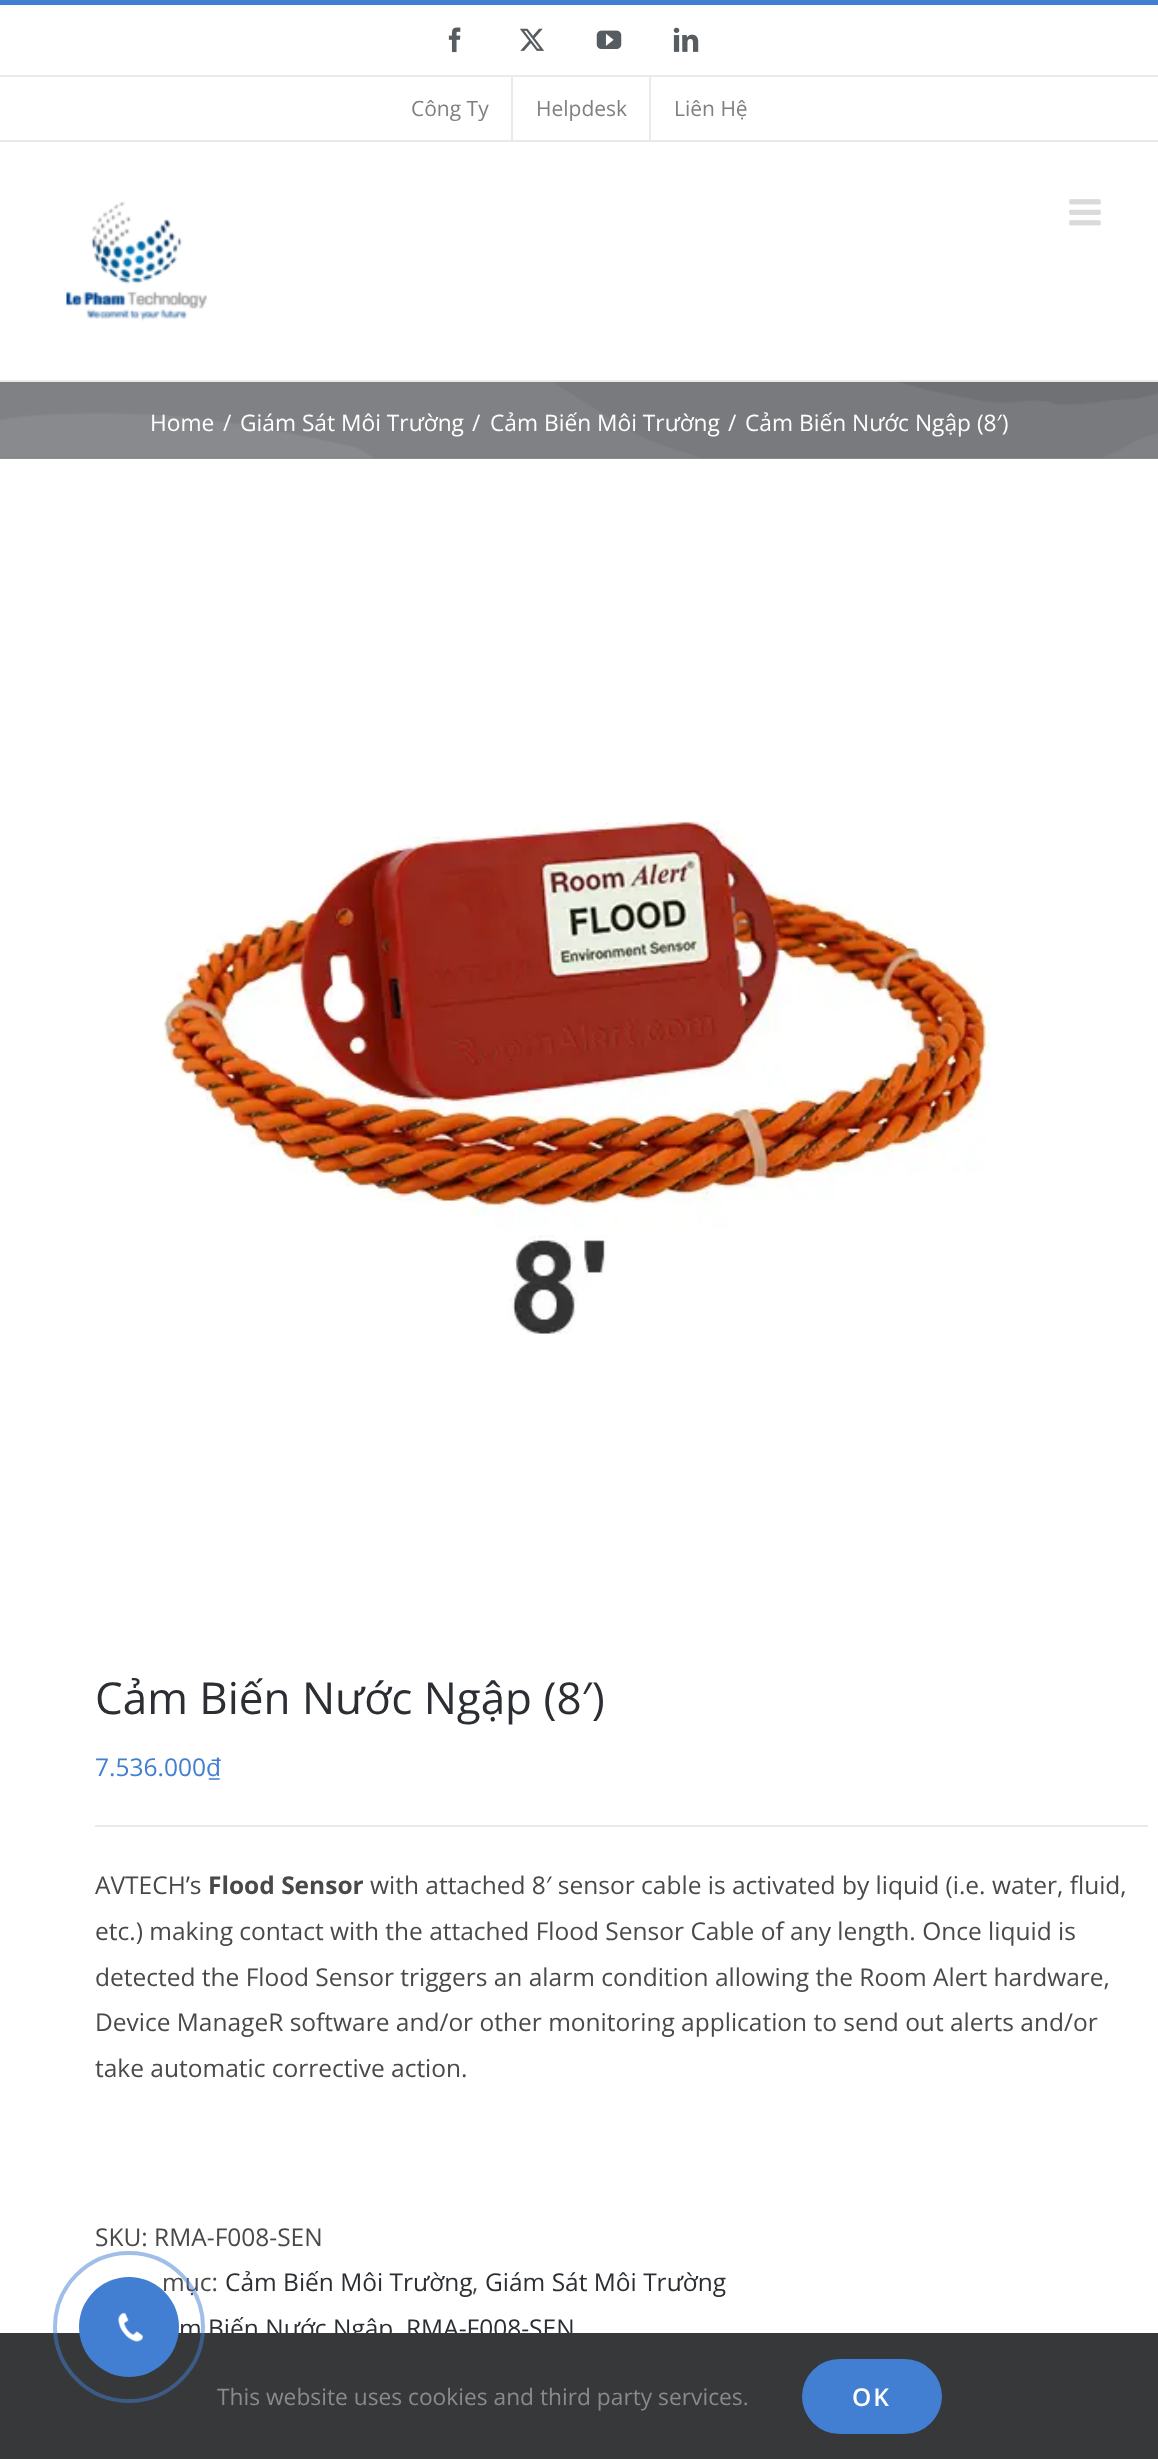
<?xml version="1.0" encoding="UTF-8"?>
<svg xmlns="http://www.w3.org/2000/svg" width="1158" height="2459">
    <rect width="100%" height="100%" fill="#FFFFFF"/>
    <rect x="0" y="0" width="1158" height="5" fill="#427ED1"/>
    <rect x="0" y="140" width="1158" height="2" fill="#EAEAEA"/>
    <rect x="0" y="75" width="1158" height="2" fill="#EAEAEA"/>
    <image x="448" y="27" width="13" height="26" href="img_01.png"/>
    <image x="519" y="28" width="26" height="23" href="img_02.png"/>
    <image x="596" y="30" width="26" height="19" href="img_03.png"/>
    <image x="673" y="27" width="26" height="25" href="img_04.png"/>
    <text x="411" y="116" font-family="Open Sans" font-size="21" fill="#808080">Công Ty</text>
    <rect x="511" y="77" width="2" height="63" fill="#EAEAEA"/>
    <text x="536" y="116" font-family="Open Sans" font-size="21" fill="#808080">Helpdesk</text>
    <rect x="649" y="77" width="2" height="63" fill="#EAEAEA"/>
    <text x="674" y="116" font-family="Open Sans" font-size="21" fill="#808080">Liên Hệ</text>
    <rect x="0" y="380" width="1158" height="2" fill="#EAEAEA"/>
    <image x="66" y="201" width="141" height="120" href="img_05.png"/>
    <image x="1069" y="199" width="32" height="27" href="img_06.png"/>
    <rect x="0" y="458" width="1158" height="1" fill="#999999"/>
    <image x="0" y="382" width="1158" height="77" href="img_07.png"/>
    <text x="150" y="431" font-family="Open Sans" font-size="22.75" fill="#FFFFFF">Home</text>
    <text x="223" y="431" font-family="Open Sans" font-size="22.75" fill="#FFFFFF">/</text>
    <text x="240" y="431" font-family="Open Sans" font-size="22.75" fill="#FFFFFF">Giám Sát Môi Trường</text>
    <text x="472" y="431" font-family="Open Sans" font-size="22.75" fill="#FFFFFF">/</text>
    <text x="490" y="431" font-family="Open Sans" font-size="22.75" fill="#FFFFFF">Cảm Biến Môi Trường</text>
    <text x="728" y="431" font-family="Open Sans" font-size="22.75" fill="#FFFFFF">/</text>
    <text x="745" y="431" font-family="Open Sans" font-size="22.75" fill="#FFFFFF">Cảm Biến Nước Ngập (8′)</text>
    <image x="163" y="821" width="828" height="513" href="img_08.png"/>
    <text x="95" y="1714" font-family="Open Sans" font-size="44" fill="#2B2E32">Cảm Biến Nước Ngập (8′)</text>
    <text x="95" y="1776" font-family="Open Sans" font-size="24.5" fill="#427ED1">7.536.000₫</text>
    <rect x="95" y="1825" width="1053" height="2" fill="#EAEAEA"/>
    <text x="95" y="1894" font-family="Open Sans" font-size="24.5" fill="#494949">AVTECH’s</text>
    <text x="208" y="1894" font-family="Open Sans" font-size="24.5" font-weight="700" fill="#494949">Flood Sensor</text>
    <text x="370" y="1894" font-family="Open Sans" font-size="24.5" fill="#494949">with attached 8′ sensor cable is activated by liquid (i.e. water, fluid,</text>
    <text font-family="Open Sans" font-size="24.5" fill="#494949">
        <tspan x="95" y="1940">etc.) making contact with the attached Flood Sensor Cable of any length. Once liquid is</tspan>
        <tspan x="95" y="1986">detected the Flood Sensor triggers an alarm condition allowing the Room Alert hardware,</tspan>
        <tspan x="95" y="2031">Device ManageR software and/or other monitoring application to send out alerts and/or</tspan>
        <tspan x="95" y="2077">take automatic corrective action.</tspan>
    </text>
    <text x="95" y="2246" font-family="Open Sans" font-size="24.5" fill="#494949">SKU: RMA-F008-SEN</text>
    <text x="162" y="2291" font-family="Open Sans" font-size="24.5" fill="#494949">mục:</text>
    <text x="225" y="2291" font-family="Open Sans" font-size="24.5" fill="#2B2E32">Cảm Biến Môi Trường</text>
    <text x="472" y="2291" font-family="Open Sans" font-size="24.5" fill="#494949">,</text>
    <text x="485" y="2291" font-family="Open Sans" font-size="24.5" fill="#2B2E32">Giám Sát Môi Trường</text>
    <text x="179" y="2337" font-family="Open Sans" font-size="24.5" fill="#2B2E32">m Biến Nước Ngập</text>
    <text x="406" y="2337" font-family="Open Sans" font-size="24.5" fill="#2B2E32">RMA-F008-SEN</text>
    <rect x="0" y="2333" width="1158" height="126" fill="#363839"/>
    <circle cx="129" cy="2327" r="74" fill="none" stroke="#427ED1" stroke-opacity="0.5" stroke-width="4"/>
    <circle cx="129" cy="2327" r="50" fill="#427ED1"/>
    <image x="118" y="2312" width="25" height="30" href="img_09.png"/>
    <text x="217" y="2405" font-family="Open Sans" font-size="22.75" fill="#8C8989">This website uses cookies and third party services.</text>
    <rect x="802" y="2359" width="140" height="75" rx="37.5" fill="#427ED1"/>
    <text x="852" y="2406" font-family="Open Sans" font-size="24.5" font-weight="600" letter-spacing="2" fill="#FFFFFF">OK</text>
</svg>
